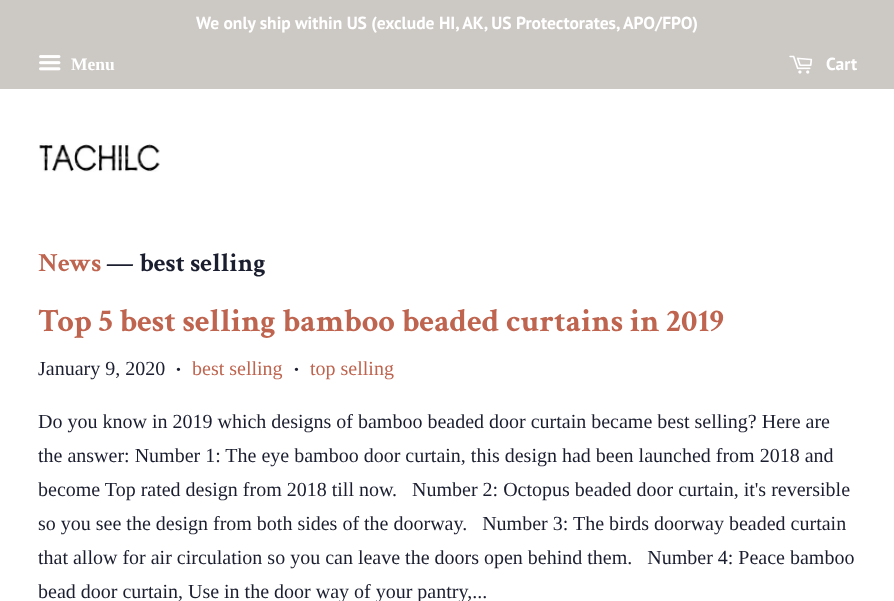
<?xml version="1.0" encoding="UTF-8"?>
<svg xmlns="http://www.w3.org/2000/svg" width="894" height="601">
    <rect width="100%" height="100%" fill="#FFFFFF"/>
    <rect x="0" y="0" width="894" height="89" fill="#CCC8C4"/>
    <text x="196" y="29" font-family="PT Sans" font-size="17.5" font-weight="700" fill="#FFFFFF">We only ship within US (exclude HI, AK, US Protectorates, APO/FPO)</text>
    <image x="39" y="55" width="22" height="16" href="img_01.png"/>
    <text x="71" y="70" font-family="Liberation Serif" font-size="17.5" font-weight="700" fill="#FFFFFF">Menu</text>
    <image x="789" y="55" width="24" height="19" href="img_02.png"/>
    <text x="826" y="70" font-family="PT Sans" font-size="17.5" font-weight="700" fill="#FFFFFF">Cart</text>
    <image x="39" y="143" width="121" height="29" href="img_03.png"/>
    <text x="38" y="271" font-family="Crimson Text" font-size="26.25" font-weight="700" fill="#BE644F">News</text>
    <text x="106" y="271" font-family="Crimson Text" font-size="26.25" font-weight="700" fill="#1B1E2F">— best selling</text>
    <text x="38" y="331" font-family="Crimson Text" font-size="32.5" font-weight="700" fill="#BE644F">Top 5 best selling bamboo beaded curtains in 2019</text>
    <text x="38" y="375" font-family="Liberation Serif" font-size="20" fill="#1B1E2F">January 9, 2020</text>
    <text x="176" y="374" font-family="Liberation Serif" font-size="14" fill="#1B1E2F">•</text>
    <text x="192" y="375" font-family="Liberation Serif" font-size="20" fill="#BE644F">best selling</text>
    <text x="294" y="374" font-family="Liberation Serif" font-size="14" fill="#1B1E2F">•</text>
    <text x="310" y="375" font-family="Liberation Serif" font-size="20" fill="#BE644F">top selling</text>
    <text font-family="Liberation Serif" font-size="20" fill="#1B1E2F" xml:space="preserve"><tspan x="38" y="428">Do you know in 2019 which designs of bamboo beaded door curtain became best selling? Here are</tspan><tspan x="38" y="462">the answer: Number 1: The eye bamboo door curtain, this design had been launched from 2018 and</tspan><tspan x="38" y="496">become Top rated design from 2018 till now.   Number 2: Octopus beaded door curtain, it's reversible</tspan><tspan x="38" y="530">so you see the design from both sides of the doorway.   Number 3: The birds doorway beaded curtain</tspan><tspan x="38" y="564">that allow for air circulation so you can leave the doors open behind them.   Number 4: Peace bamboo</tspan><tspan x="38" y="598">bead door curtain, Use in the door way of your pantry,...</tspan></text>
</svg>
